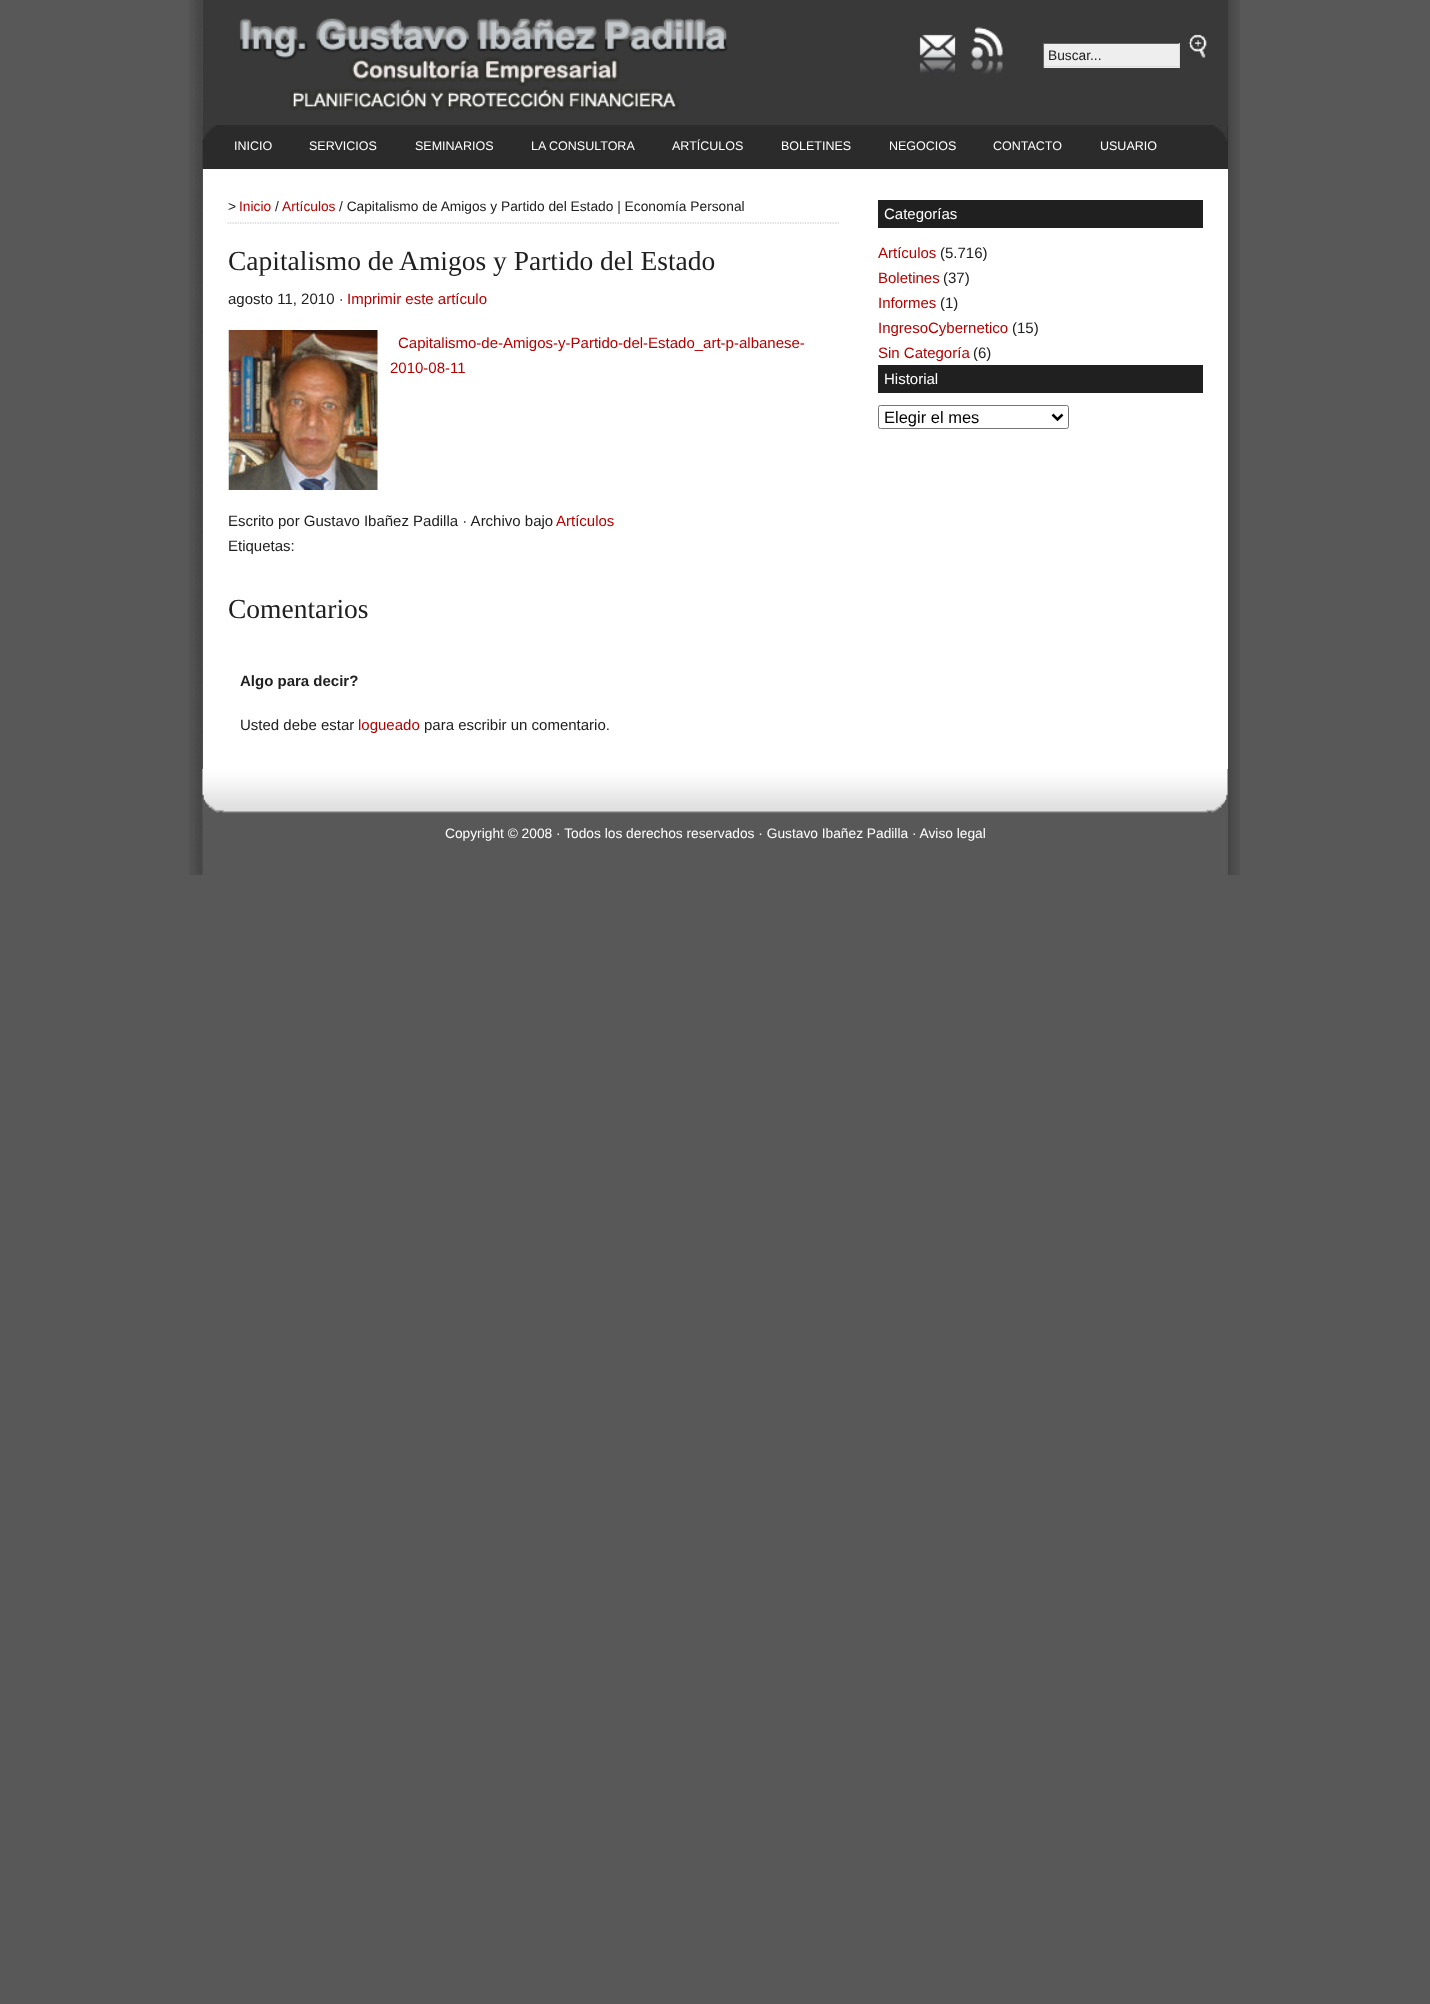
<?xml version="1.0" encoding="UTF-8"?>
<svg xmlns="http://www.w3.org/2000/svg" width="1430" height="2004">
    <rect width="100%" height="100%" fill="#585858"/>
    <image x="189" y="0" width="1051" height="875" href="img_01.png"/>
    <rect x="203" y="169" width="1025" height="600" fill="#FFFFFF"/>
    <rect x="728" y="0" width="500" height="125" fill="#393939"/>
    <image x="202" y="0" width="526" height="125" href="img_02.png"/>
    <image x="919" y="34" width="37" height="39" href="img_03.png"/>
    <image x="971" y="27" width="32" height="47" href="img_04.png"/>
    <rect x="1044" y="44" width="135" height="24" fill="#EEEEEE"/>
    <rect x="1043" y="43" width="137" height="1" fill="#666666"/>
    <rect x="1179" y="43" width="1" height="25" fill="#DDDDDD"/>
    <rect x="1043" y="66" width="137" height="1" fill="#DDDDDD"/>
    <rect x="1043" y="43" width="1" height="25" fill="#666666"/>
    <text x="1048" y="60" font-family="Liberation Sans" font-size="13.75" fill="#202020">Buscar...</text>
    <image x="1188" y="34" width="19" height="24" href="img_05.png"/>
    <rect x="203" y="125" width="1025" height="44" fill="#2B2B2B"/>
    <image x="202" y="125" width="1026" height="44" href="img_06.png"/>
    <text x="234" y="150" font-family="Liberation Sans" font-size="12.5" fill="#FFFFFF">INICIO</text>
    <text x="309" y="150" font-family="Liberation Sans" font-size="12.5" fill="#FFFFFF">SERVICIOS</text>
    <text x="415" y="150" font-family="Liberation Sans" font-size="12.5" fill="#FFFFFF">SEMINARIOS</text>
    <text x="531" y="150" font-family="Liberation Sans" font-size="12.5" fill="#FFFFFF">LA CONSULTORA</text>
    <text x="672" y="150" font-family="Liberation Sans" font-size="12.5" fill="#FFFFFF">ARTÍCULOS</text>
    <text x="781" y="150" font-family="Liberation Sans" font-size="12.5" fill="#FFFFFF">BOLETINES</text>
    <text x="889" y="150" font-family="Liberation Sans" font-size="12.5" fill="#FFFFFF">NEGOCIOS</text>
    <text x="993" y="150" font-family="Liberation Sans" font-size="12.5" fill="#FFFFFF">CONTACTO</text>
    <text x="1100" y="150" font-family="Liberation Sans" font-size="12.5" fill="#FFFFFF">USUARIO</text>
    <path d="M 227.5 223 H 840" fill="none" stroke="#C0C0C0" stroke-width="1.2" stroke-dasharray="1.25 1.25"/>
    <text x="228" y="211" font-family="Liberation Sans" font-size="13.75" fill="#202020">&gt;</text>
    <text x="239" y="211" font-family="Liberation Sans" font-size="13.75" fill="#B60000">Inicio</text>
    <text x="275" y="211" font-family="Liberation Sans" font-size="13.75" fill="#202020">/</text>
    <text x="282" y="211" font-family="Liberation Sans" font-size="13.75" fill="#B60000">Artículos</text>
    <text x="339" y="211" font-family="Liberation Sans" font-size="13.75" fill="#202020">/ Capitalismo de Amigos y Partido del Estado | Economía Personal</text>
    <text x="228" y="270" font-family="Liberation Serif" font-size="27.5" fill="#202020">Capitalismo de Amigos y Partido del Estado</text>
    <text x="228" y="304" font-family="Liberation Sans" font-size="15" fill="#202020">agosto 11, 2010 ·</text>
    <text x="347" y="304" font-family="Liberation Sans" font-size="15" fill="#B60000">Imprimir este artículo</text>
    <image x="227" y="330" width="151" height="160" href="img_07.png"/>
    <text x="398" y="348" font-family="Liberation Sans" font-size="15" fill="#B60000">Capitalismo-de-Amigos-y-Partido-del-Estado_art-p-albanese-</text>
    <text x="390" y="373" font-family="Liberation Sans" font-size="15" fill="#B60000">2010-08-11</text>
    <text x="228" y="526" font-family="Liberation Sans" font-size="15" fill="#202020">Escrito por Gustavo Ibañez Padilla · Archivo bajo</text>
    <text x="556" y="526" font-family="Liberation Sans" font-size="15" fill="#B60000">Artículos</text>
    <text x="228" y="551" font-family="Liberation Sans" font-size="15" fill="#202020">Etiquetas:</text>
    <text x="228" y="618" font-family="Liberation Serif" font-size="27.5" fill="#202020">Comentarios</text>
    <text x="240" y="686" font-family="Liberation Sans" font-size="15" font-weight="700" fill="#202020">Algo para decir?</text>
    <text x="240" y="730" font-family="Liberation Sans" font-size="15" fill="#202020">Usted debe estar</text>
    <text x="358" y="730" font-family="Liberation Sans" font-size="15" fill="#B60000">logueado</text>
    <text x="424" y="730" font-family="Liberation Sans" font-size="15" fill="#202020">para escribir un comentario.</text>
    <rect x="878" y="200" width="325" height="28" fill="#202020"/>
    <text x="884" y="219" font-family="Liberation Sans" font-size="15" fill="#FFFFFF">Categorías</text>
    <text x="878" y="258" font-family="Liberation Sans" font-size="15" fill="#B60000">Artículos</text>
    <text x="940" y="258" font-family="Liberation Sans" font-size="15" fill="#202020">(5.716)</text>
    <text x="878" y="283" font-family="Liberation Sans" font-size="15" fill="#B60000">Boletines</text>
    <text x="943" y="283" font-family="Liberation Sans" font-size="15" fill="#202020">(37)</text>
    <text x="878" y="308" font-family="Liberation Sans" font-size="15" fill="#B60000">Informes</text>
    <text x="940" y="308" font-family="Liberation Sans" font-size="15" fill="#202020">(1)</text>
    <text x="878" y="333" font-family="Liberation Sans" font-size="15" fill="#B60000">IngresoCybernetico</text>
    <text x="1012" y="333" font-family="Liberation Sans" font-size="15" fill="#202020">(15)</text>
    <text x="878" y="358" font-family="Liberation Sans" font-size="15" fill="#B60000">Sin Categoría</text>
    <text x="973" y="358" font-family="Liberation Sans" font-size="15" fill="#202020">(6)</text>
    <rect x="878" y="365" width="325" height="28" fill="#202020"/>
    <text x="884" y="384" font-family="Liberation Sans" font-size="15" fill="#FFFFFF">Historial</text>
    <rect x="878.5" y="405.5" width="190" height="23" rx="2" fill="none" stroke="#767676"/>
    <path d="M 1052.5 414.5 L 1057.5 419.5 L 1062.5 414.5" fill="none" stroke="#000000" stroke-width="2.5"/>
    <text x="884" y="423" font-family="Liberation Sans" font-size="16.5" fill="#000000">Elegir el mes</text>
    <rect x="1227" y="769" width="1" height="106" fill="#585858"/>
    <image x="202" y="768" width="1026" height="45" href="img_08.png"/>
    <text x="445" y="838" font-family="Liberation Sans" font-size="13.75" fill="#FFFFFF">Copyright © 2008 · Todos los derechos reservados · Gustavo Ibañez Padilla · Aviso legal</text>
</svg>
